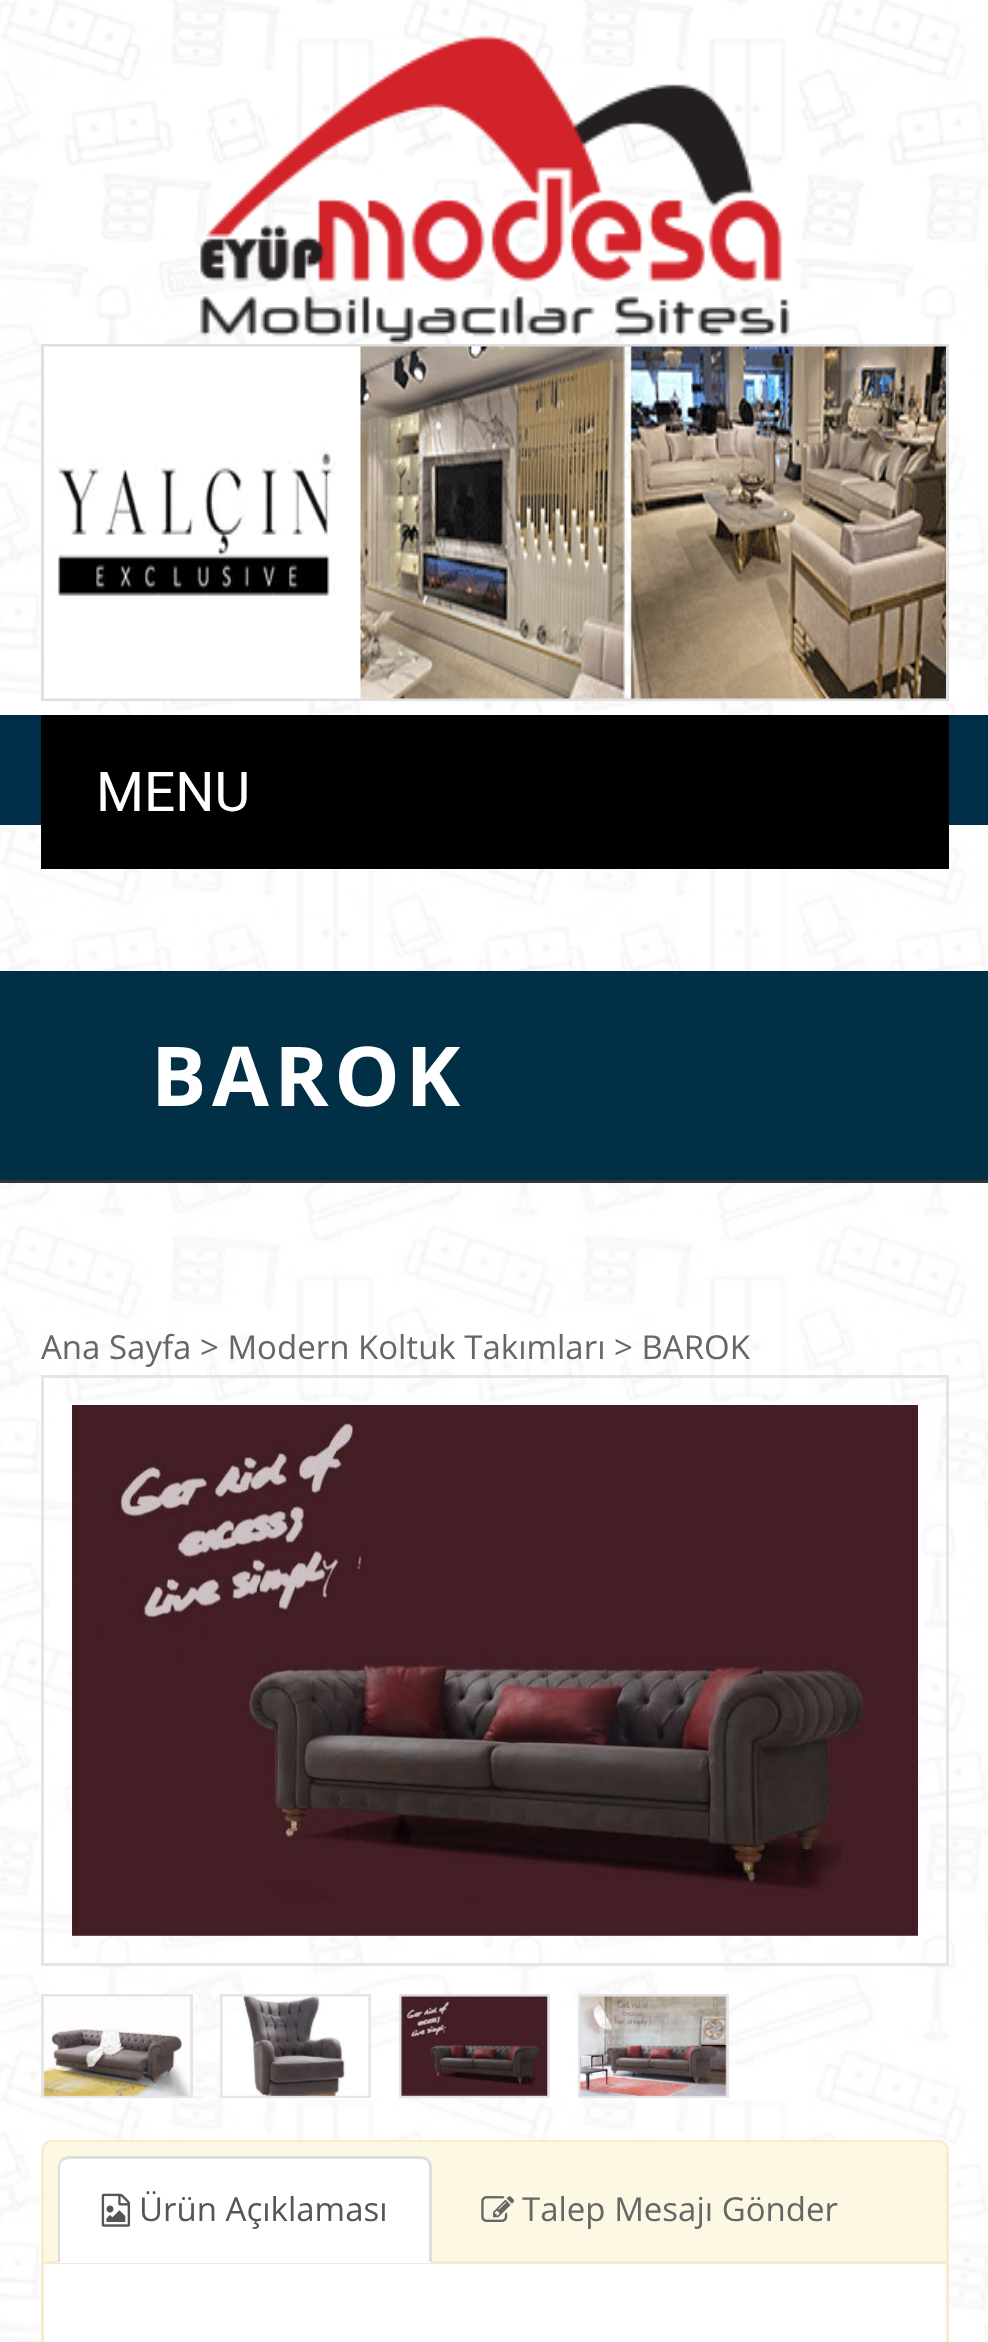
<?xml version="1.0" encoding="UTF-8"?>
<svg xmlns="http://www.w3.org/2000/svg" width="988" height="2342">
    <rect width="100%" height="100%" fill="#FFFFFF"/>
    <image x="0" y="0" width="988" height="2342" href="img_01.png"/>
    <image x="44" y="0" width="902" height="709" href="img_02.png"/>
    <image x="200" y="35" width="590" height="309" href="img_03.png"/>
    <rect x="42.5" y="345.5" width="905" height="354" fill="none" stroke="#E0E0E0" stroke-width="3"/>
    <image x="44" y="346" width="902" height="353" href="img_04.png"/>
    <rect x="0" y="715" width="988" height="110" fill="#002D47"/>
    <rect x="41" y="715" width="908" height="154" fill="#000000"/>
    <text x="96" y="811" font-family="Roboto" font-size="55" fill="#FFFFFF">MENU</text>
    <rect x="0" y="971" width="988" height="209" fill="#002F46"/>
    <rect x="0" y="1180" width="988" height="3" fill="#333333"/>
    <text x="151" y="1106" font-family="Open Sans" font-size="82.5" font-weight="700" letter-spacing="5.5" fill="#FFFFFF">BAROK</text>
    <text x="41" y="1359" font-family="Open Sans" font-size="33" fill="#666666">Ana Sayfa &gt; Modern Koltuk Takımları &gt; BAROK</text>
    <rect x="42.5" y="1376.5" width="905" height="588" fill="none" stroke="#E5E5E5" stroke-width="3"/>
    <image x="72" y="1405" width="846" height="531" href="img_05.png"/>
    <rect x="42.5" y="1995.5" width="149" height="101" fill="none" stroke="#E5E5E5" stroke-width="3"/>
    <image x="43" y="1996" width="147" height="100" href="img_06.png"/>
    <rect x="221.5" y="1995.5" width="148" height="101" fill="none" stroke="#E5E5E5" stroke-width="3"/>
    <image x="222" y="1995" width="147" height="101" href="img_07.png"/>
    <rect x="400.5" y="1995.5" width="148" height="101" fill="none" stroke="#E5E5E5" stroke-width="3"/>
    <image x="401" y="1995" width="147" height="101" href="img_08.png"/>
    <rect x="579.5" y="1995.5" width="148" height="101" fill="none" stroke="#E5E5E5" stroke-width="3"/>
    <image x="580" y="1995" width="147" height="101" href="img_09.png"/>
    <rect x="42.5" y="2141.5" width="905" height="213" rx="9.5" fill="#FFFFFF" stroke="#FAEBCC" stroke-width="3"/>
    <path d="M 52 2142 H 938 C 942.5 2142 946 2145.5 946 2150 V 2263 H 44 V 2150 C 44 2145.5 47.5 2142 52 2142 Z" fill="#FCF8E3"/>
    <rect x="44" y="2261" width="902" height="3" fill="#FAEBCC"/>
    <path d="M 69 2156 H 421 C 427 2156 432 2161 432 2167 V 2263 H 58 V 2167 C 58 2161 63 2156 69 2156 Z" fill="#FFFFFF"/>
    <path d="M 69 2156 C 66 2156 63 2157 61 2159 L 63 2161 C 64 2160 67 2159 69 2159 H 421 C 423 2159 425 2160 427 2161 L 429 2159 C 427 2157 424 2156 421 2156 Z" fill="#DDDDDD"/>
    <path d="M 432 2263 L 428 2260 H 429 V 2167 C 429 2165 428 2163 427 2161 L 429 2159 C 430 2161 431 2163 432 2165 Z" fill="#DDDDDD"/>
    <path d="M 61 2159 C 59 2161 58 2164 58 2167 V 2263 L 61 2260 H 60 V 2167 C 60 2164 61 2162 63 2161 Z" fill="#DDDDDD"/>
    <image x="101" y="2193" width="30" height="34" href="img_10.png"/>
    <text x="139" y="2221" font-family="Open Sans" font-size="33" fill="#555555">Ürün Açıklaması</text>
    <image x="481" y="2196" width="34" height="26" href="img_11.png"/>
    <text x="522" y="2221" font-family="Open Sans" font-size="33" fill="#666666">Talep Mesajı Gönder</text>
</svg>
